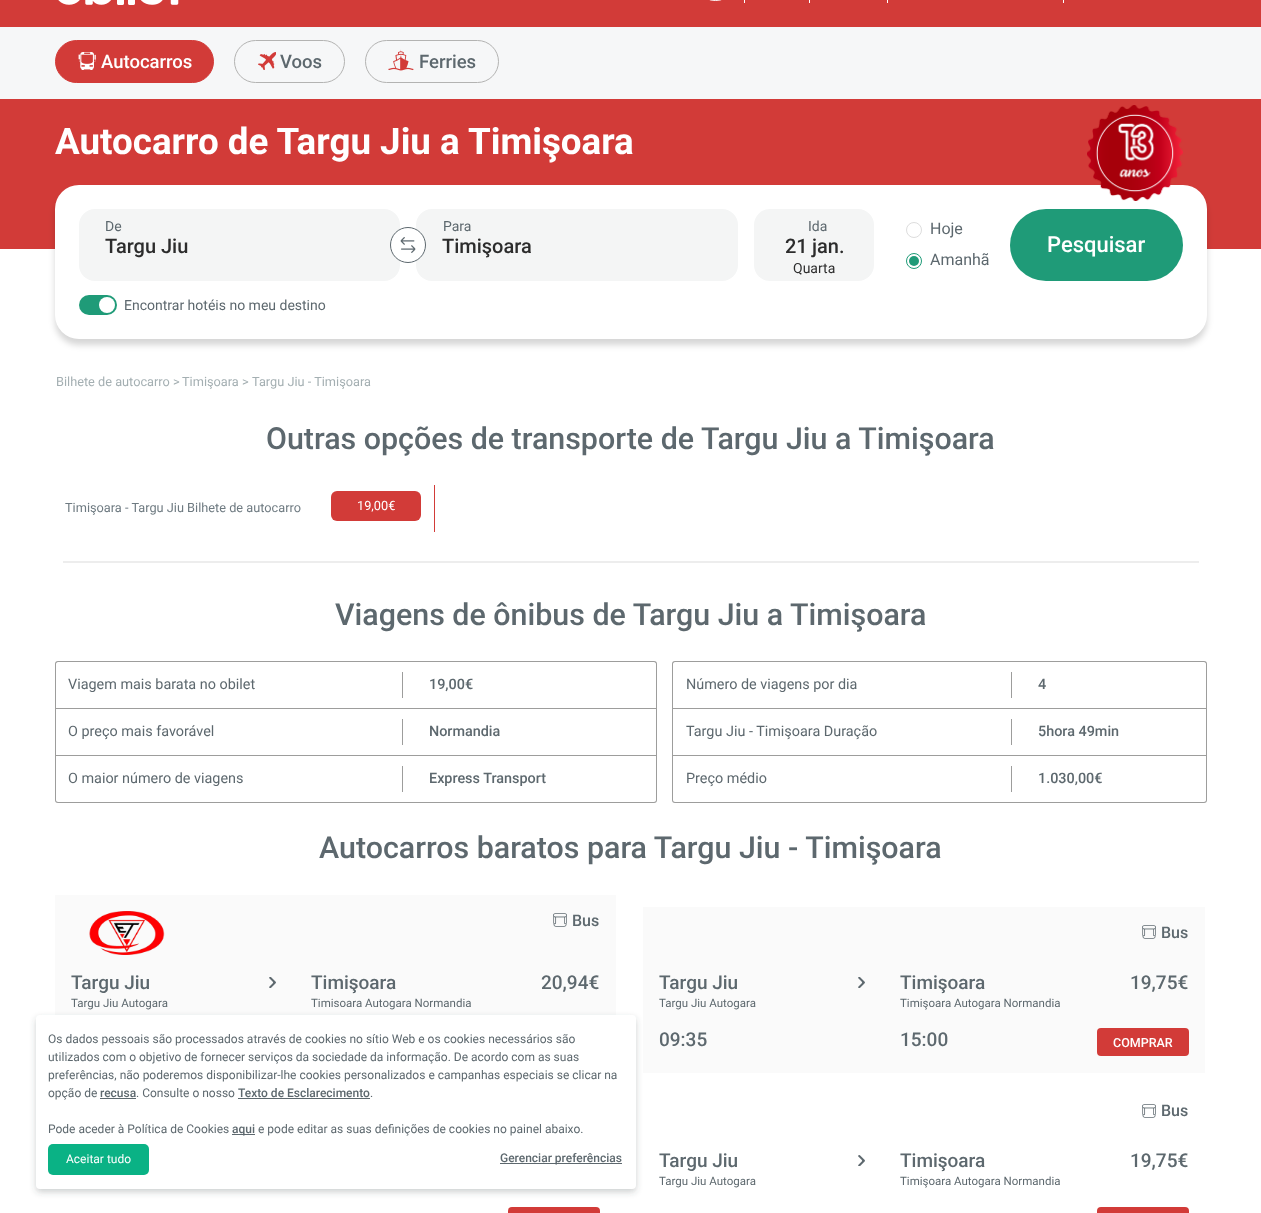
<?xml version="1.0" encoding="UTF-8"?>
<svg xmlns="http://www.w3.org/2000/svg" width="1261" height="1213">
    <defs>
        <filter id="blur1" x="-50%" y="-200%" width="200%" height="500%"><feGaussianBlur stdDeviation="3"/></filter>
    </defs>
    <rect width="100%" height="100%" fill="#FFFFFF"/>
    <rect x="0" y="0" width="1261" height="27" fill="#D23B38"/>
    <image x="58" y="0" width="121" height="5" href="img_01.png"/>
    <rect x="702.5" y="-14.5" width="26" height="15" rx="13" fill="none" stroke="#FFFFFF"/>
    <rect x="744" y="0" width="1" height="3" fill="#FFFFFF"/>
    <rect x="809" y="0" width="1" height="3" fill="#FFFFFF"/>
    <rect x="887" y="0" width="1" height="3" fill="#FFFFFF"/>
    <rect x="1063" y="0" width="1" height="3" fill="#FFFFFF"/>
    <rect x="0" y="27" width="1261" height="72" fill="#F6F7F8"/>
    <rect x="55.5" y="40.5" width="158" height="42" rx="21" fill="#D23B38" stroke="#D23B38"/>
    <image x="78" y="52" width="18" height="18" href="img_02.png"/>
    <text x="101" y="68" font-family="Roboto" font-size="18.5" font-weight="500" fill="#FFFFFF">Autocarros</text>
    <rect x="234.5" y="40.5" width="110" height="42" rx="21" fill="none" stroke="#B3B3B2"/>
    <image x="258" y="52" width="18" height="18" href="img_03.png"/>
    <text x="280" y="68" font-family="Roboto" font-size="18.5" font-weight="500" fill="#5D686E">Voos</text>
    <rect x="365.5" y="40.5" width="133" height="42" rx="21" fill="none" stroke="#B3B3B2"/>
    <image x="388" y="49" width="26" height="22" href="img_04.png"/>
    <text x="419" y="68" font-family="Roboto" font-size="18.5" font-weight="500" fill="#5D686E">Ferries</text>
    <rect x="0" y="99" width="1261" height="150" fill="#D23B38"/>
    <text x="55" y="154" font-family="Roboto" font-size="36.75" font-weight="700" fill="#FFFFFF">Autocarro de Targu Jiu a Timişoara</text>
    <rect x="55" y="191" width="1152" height="154" rx="24" fill="#000000" fill-opacity="0.16" filter="url(#blur1)"/>
    <rect x="55" y="185" width="1152" height="154" rx="24" fill="#FFFFFF"/>
    <image x="1087" y="105" width="96" height="96" href="img_05.png"/>
    <rect x="79" y="209" width="321" height="72" rx="16" fill="#F4F5F5"/>
    <text x="105" y="231" font-family="Roboto" font-size="14" fill="#5D686E">De</text>
    <text x="105" y="253" font-family="Roboto" font-size="20" font-weight="500" fill="#2C2C2C">Targu Jiu</text>
    <rect x="416" y="209" width="322" height="72" rx="16" fill="#F4F5F5"/>
    <circle cx="408" cy="245" r="17.5" fill="#FFFFFF" stroke="#5D686E"/>
    <image x="400" y="237" width="16" height="16" href="img_06.png"/>
    <text x="443" y="231" font-family="Roboto" font-size="14" fill="#5D686E">Para</text>
    <text x="442" y="253" font-family="Roboto" font-size="20" font-weight="500" fill="#2C2C2C">Timişoara</text>
    <rect x="754" y="209" width="120" height="72" rx="16" fill="#F4F5F5"/>
    <text x="808" y="231" font-family="Roboto" font-size="14" fill="#5D686E">Ida</text>
    <text x="785" y="253" font-family="Roboto" font-size="20" font-weight="500" fill="#2C2C2C">21</text>
    <text x="812" y="253" font-family="Roboto" font-size="20" font-weight="500" fill="#2C2C2C">jan.</text>
    <text x="793" y="273" font-family="Roboto" font-size="14" fill="#2C2C2C">Quarta</text>
    <circle cx="914" cy="230" r="7.5" fill="none" stroke="#DDDDDD"/>
    <text x="930" y="234" font-family="Roboto" font-size="16" fill="#5D686E">Hoje</text>
    <circle cx="914" cy="261" r="7.5" fill="none" stroke="#1F9B78"/>
    <circle cx="914" cy="261" r="5" fill="#1F9B78"/>
    <text x="930" y="265" font-family="Roboto" font-size="16" fill="#5D686E">Amanhã</text>
    <rect x="1010" y="209" width="173" height="72" rx="36" fill="#1F9B78"/>
    <text x="1047" y="252" font-family="Roboto" font-size="22" font-weight="500" fill="#FFFFFF">Pesquisar</text>
    <rect x="79" y="295" width="38" height="20" rx="10" fill="#1F9B78"/>
    <circle cx="107" cy="305" r="8" fill="#FFFFFF"/>
    <text x="124" y="310" font-family="Roboto" font-size="14" fill="#5D686E">Encontrar hotéis no meu destino</text>
    <text x="56" y="386" font-family="Roboto" font-size="12.75" fill="#A4AFB2">Bilhete de autocarro &gt;</text>
    <text x="182" y="386" font-family="Roboto" font-size="12.75" fill="#A4AFB2">Timişoara &gt;</text>
    <text x="252" y="386" font-family="Roboto" font-size="12.75" fill="#A4AFB2">Targu Jiu - Timişoara</text>
    <text x="266" y="449" font-family="Roboto" font-size="30.4" font-weight="500" fill="#5D686E">Outras opções de transporte de Targu Jiu a Timişoara</text>
    <rect x="434" y="485" width="1" height="47" fill="#D23B38"/>
    <text x="65" y="512" font-family="Roboto" font-size="12.75" fill="#6E7A81">Timişoara - Targu Jiu Bilhete de autocarro</text>
    <rect x="331" y="491" width="90" height="30" rx="6" fill="#D23B38"/>
    <text x="357" y="510" font-family="Roboto" font-size="12.75" fill="#FFFFFF">19,00€</text>
    <rect x="63" y="561" width="1136" height="2" fill="#EDEDED"/>
    <text x="335" y="625" font-family="Roboto" font-size="30.4" font-weight="500" fill="#5D686E">Viagens de ônibus de Targu Jiu a Timişoara</text>
    <path d="M 58 661 H 416 V 709 H 55 V 664 C 55 662 56 661 58 661 Z M 58 662 H 416 V 708 H 56 V 664 C 56 663 57 662 58 662 Z" fill="#9D9D9C" fill-rule="evenodd"/>
    <rect x="402" y="672" width="1" height="26" fill="#9D9D9C"/>
    <text x="68" y="689" font-family="Roboto" font-size="14.4" fill="#5D686E">Viagem mais barata no obilet</text>
    <path d="M 416 661 H 654 C 656 661 657 662 657 664 V 709 H 416 Z M 416 662 H 654 C 655 662 656 663 656 664 V 708 H 416 Z" fill="#9D9D9C" fill-rule="evenodd"/>
    <text x="429" y="689" font-family="Roboto" font-size="14.4" font-weight="500" fill="#5D686E">19,00€</text>
    <path d="M 675 661 H 1025 V 709 H 672 V 664 C 672 662 673 661 675 661 Z M 675 662 H 1025 V 708 H 673 V 664 C 673 663 674 662 675 662 Z" fill="#9D9D9C" fill-rule="evenodd"/>
    <rect x="1011" y="672" width="1" height="26" fill="#9D9D9C"/>
    <text x="686" y="689" font-family="Roboto" font-size="14.4" fill="#5D686E">Número de viagens por dia</text>
    <path d="M 1025 661 H 1204 C 1206 661 1207 662 1207 664 V 709 H 1025 Z M 1025 662 H 1204 C 1205 662 1206 663 1206 664 V 708 H 1025 Z" fill="#9D9D9C" fill-rule="evenodd"/>
    <text x="1038" y="689" font-family="Roboto" font-size="14.4" font-weight="500" fill="#5D686E">4</text>
    <rect x="55" y="755" width="361" height="1" fill="#9D9D9C"/>
    <rect x="55" y="709" width="1" height="47" fill="#9D9D9C"/>
    <rect x="402" y="719" width="1" height="26" fill="#9D9D9C"/>
    <text x="68" y="736" font-family="Roboto" font-size="14.4" fill="#5D686E">O preço mais favorável</text>
    <rect x="656" y="709" width="1" height="47" fill="#9D9D9C"/>
    <rect x="416" y="755" width="241" height="1" fill="#9D9D9C"/>
    <text x="429" y="736" font-family="Roboto" font-size="14.4" font-weight="500" fill="#5D686E">Normandia</text>
    <rect x="672" y="755" width="353" height="1" fill="#9D9D9C"/>
    <rect x="672" y="709" width="1" height="47" fill="#9D9D9C"/>
    <rect x="1011" y="719" width="1" height="26" fill="#9D9D9C"/>
    <text x="686" y="736" font-family="Roboto" font-size="14.4" fill="#5D686E">Targu Jiu - Timişoara Duração</text>
    <rect x="1206" y="709" width="1" height="47" fill="#9D9D9C"/>
    <rect x="1025" y="755" width="182" height="1" fill="#9D9D9C"/>
    <text x="1038" y="736" font-family="Roboto" font-size="14.4" font-weight="500" fill="#5D686E">5hora 49min</text>
    <path d="M 55 756 H 416 V 803 H 58 C 56 803 55 802 55 800 Z M 56 756 H 416 V 802 H 58 C 57 802 56 801 56 800 Z" fill="#9D9D9C" fill-rule="evenodd"/>
    <rect x="402" y="766" width="1" height="26" fill="#9D9D9C"/>
    <text x="68" y="783" font-family="Roboto" font-size="14.4" fill="#5D686E">O maior número de viagens</text>
    <path d="M 416 756 H 657 V 800 C 657 802 656 803 654 803 H 416 Z M 416 756 H 656 V 800 C 656 801 655 802 654 802 H 416 Z" fill="#9D9D9C" fill-rule="evenodd"/>
    <text x="429" y="783" font-family="Roboto" font-size="14.4" font-weight="500" fill="#5D686E">Express Transport</text>
    <path d="M 672 756 H 1025 V 803 H 675 C 673 803 672 802 672 800 Z M 673 756 H 1025 V 802 H 675 C 674 802 673 801 673 800 Z" fill="#9D9D9C" fill-rule="evenodd"/>
    <rect x="1011" y="766" width="1" height="26" fill="#9D9D9C"/>
    <text x="686" y="783" font-family="Roboto" font-size="14.4" fill="#5D686E">Preço médio</text>
    <path d="M 1025 756 H 1207 V 800 C 1207 802 1206 803 1204 803 H 1025 Z M 1025 756 H 1206 V 800 C 1206 801 1205 802 1204 802 H 1025 Z" fill="#9D9D9C" fill-rule="evenodd"/>
    <text x="1038" y="783" font-family="Roboto" font-size="14.4" font-weight="500" fill="#5D686E">1.030,00€</text>
    <text x="319" y="858" font-family="Roboto" font-size="30.4" font-weight="500" fill="#5D686E">Autocarros baratos para Targu Jiu - Timişoara</text>
    <rect x="55" y="895" width="561" height="120" fill="#FAFAFA"/>
    <image x="89" y="911" width="76" height="44" href="img_07.png"/>
    <image x="553" y="913" width="14" height="14" href="img_08.png"/>
    <text x="572" y="926" font-family="Roboto" font-size="16" font-weight="500" fill="#5D686E">Bus</text>
    <text x="71" y="989" font-family="Roboto" font-size="19" font-weight="500" fill="#5D686E">Targu Jiu</text>
    <text x="71" y="1007" font-family="Roboto" font-size="11.5" fill="#5D686E">Targu Jiu Autogara</text>
    <image x="269" y="977" width="7" height="11" href="img_09.png"/>
    <text x="311" y="989" font-family="Roboto" font-size="19" font-weight="500" fill="#5D686E">Timişoara</text>
    <text x="311" y="1007" font-family="Roboto" font-size="11.5" fill="#5D686E">Timisoara Autogara Normandia</text>
    <text x="541" y="989" font-family="Roboto" font-size="19" font-weight="500" fill="#5D686E">20,94€</text>
    <rect x="643" y="907" width="562" height="166" fill="#FAFAFA"/>
    <image x="1142" y="925" width="14" height="14" href="img_08.png"/>
    <text x="1161" y="938" font-family="Roboto" font-size="16" font-weight="500" fill="#5D686E">Bus</text>
    <text x="659" y="989" font-family="Roboto" font-size="19" font-weight="500" fill="#5D686E">Targu Jiu</text>
    <text x="659" y="1007" font-family="Roboto" font-size="11.5" fill="#5D686E">Targu Jiu Autogara</text>
    <image x="858" y="977" width="7" height="11" href="img_10.png"/>
    <text x="900" y="989" font-family="Roboto" font-size="19" font-weight="500" fill="#5D686E">Timişoara</text>
    <text x="900" y="1007" font-family="Roboto" font-size="11.5" fill="#5D686E">Timişoara Autogara Normandia</text>
    <text x="1130" y="989" font-family="Roboto" font-size="19" font-weight="500" fill="#5D686E">19,75€</text>
    <text x="659" y="1046" font-family="Roboto" font-size="19" font-weight="500" fill="#5D686E">09:35</text>
    <text x="900" y="1046" font-family="Roboto" font-size="19" font-weight="500" fill="#5D686E">15:00</text>
    <rect x="1097" y="1028" width="92" height="28" rx="4" fill="#D23B38"/>
    <text x="1113" y="1047" font-family="Roboto" font-size="12.5" font-weight="500" fill="#FFFFFF">COMPRAR</text>
    <image x="1142" y="1104" width="14" height="14" href="img_11.png"/>
    <text x="1161" y="1116" font-family="Roboto" font-size="16" font-weight="500" fill="#5D686E">Bus</text>
    <text x="659" y="1167" font-family="Roboto" font-size="19" font-weight="500" fill="#5D686E">Targu Jiu</text>
    <text x="659" y="1185" font-family="Roboto" font-size="11.5" fill="#5D686E">Targu Jiu Autogara</text>
    <image x="858" y="1155" width="7" height="11" href="img_12.png"/>
    <text x="900" y="1167" font-family="Roboto" font-size="19" font-weight="500" fill="#5D686E">Timişoara</text>
    <text x="900" y="1185" font-family="Roboto" font-size="11.5" fill="#5D686E">Timişoara Autogara Normandia</text>
    <text x="1130" y="1167" font-family="Roboto" font-size="19" font-weight="500" fill="#5D686E">19,75€</text>
    <rect x="1097" y="1207" width="92" height="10" rx="4" fill="#D23B38"/>
    <rect x="508" y="1207" width="92" height="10" rx="4" fill="#D23B38"/>
    <rect x="36" y="1018" width="600" height="174" rx="4" fill="#3C4448" fill-opacity="0.25" filter="url(#blur1)"/>
    <rect x="36" y="1015" width="600" height="174" rx="4" fill="#FFFFFF"/>
    <text font-family="Roboto" font-size="12" fill="#5D686E">
        <tspan x="48" y="1043">Os dados pessoais são processados através de cookies no sítio Web e os cookies necessários são</tspan>
        <tspan x="48" y="1061">utilizados com o objetivo de fornecer serviços da sociedade da informação. De acordo com as suas</tspan>
        <tspan x="48" y="1079">preferências, não poderemos disponibilizar-lhe cookies personalizados e campanhas especiais se clicar na</tspan>
        <tspan x="48" y="1097">opção de</tspan>
    </text>
    <text x="100" y="1097" font-family="Roboto" font-size="12" font-weight="500" fill="#5D686E">recusa</text>
    <rect x="100" y="1098" width="36" height="1" fill="#5D686E"/>
    <text x="136" y="1097" font-family="Roboto" font-size="12" fill="#5D686E">. Consulte o nosso</text>
    <text x="238" y="1097" font-family="Roboto" font-size="12" font-weight="500" fill="#5D686E">Texto de Esclarecimento</text>
    <text x="370" y="1097" font-family="Roboto" font-size="12" fill="#5D686E">.</text>
    <rect x="238" y="1098" width="132" height="1" fill="#5D686E"/>
    <text x="48" y="1133" font-family="Roboto" font-size="12" fill="#5D686E">Pode aceder à Política de Cookies</text>
    <rect x="232" y="1134" width="23" height="1" fill="#5D686E"/>
    <text x="232" y="1133" font-family="Roboto" font-size="12" font-weight="500" fill="#5D686E">aqui</text>
    <text x="258" y="1133" font-family="Roboto" font-size="12" fill="#5D686E">e pode editar as suas definições de cookies no painel abaixo.</text>
    <rect x="48" y="1144" width="101" height="31" rx="5" fill="#0AB285"/>
    <text x="66" y="1163" font-family="Roboto" font-size="12" fill="#FFFFFF">Aceitar tudo</text>
    <rect x="500" y="1163" width="122" height="1" fill="#5D686E"/>
    <text x="500" y="1162" font-family="Roboto" font-size="12" font-weight="500" fill="#5D686E">Gerenciar preferências</text>
</svg>
